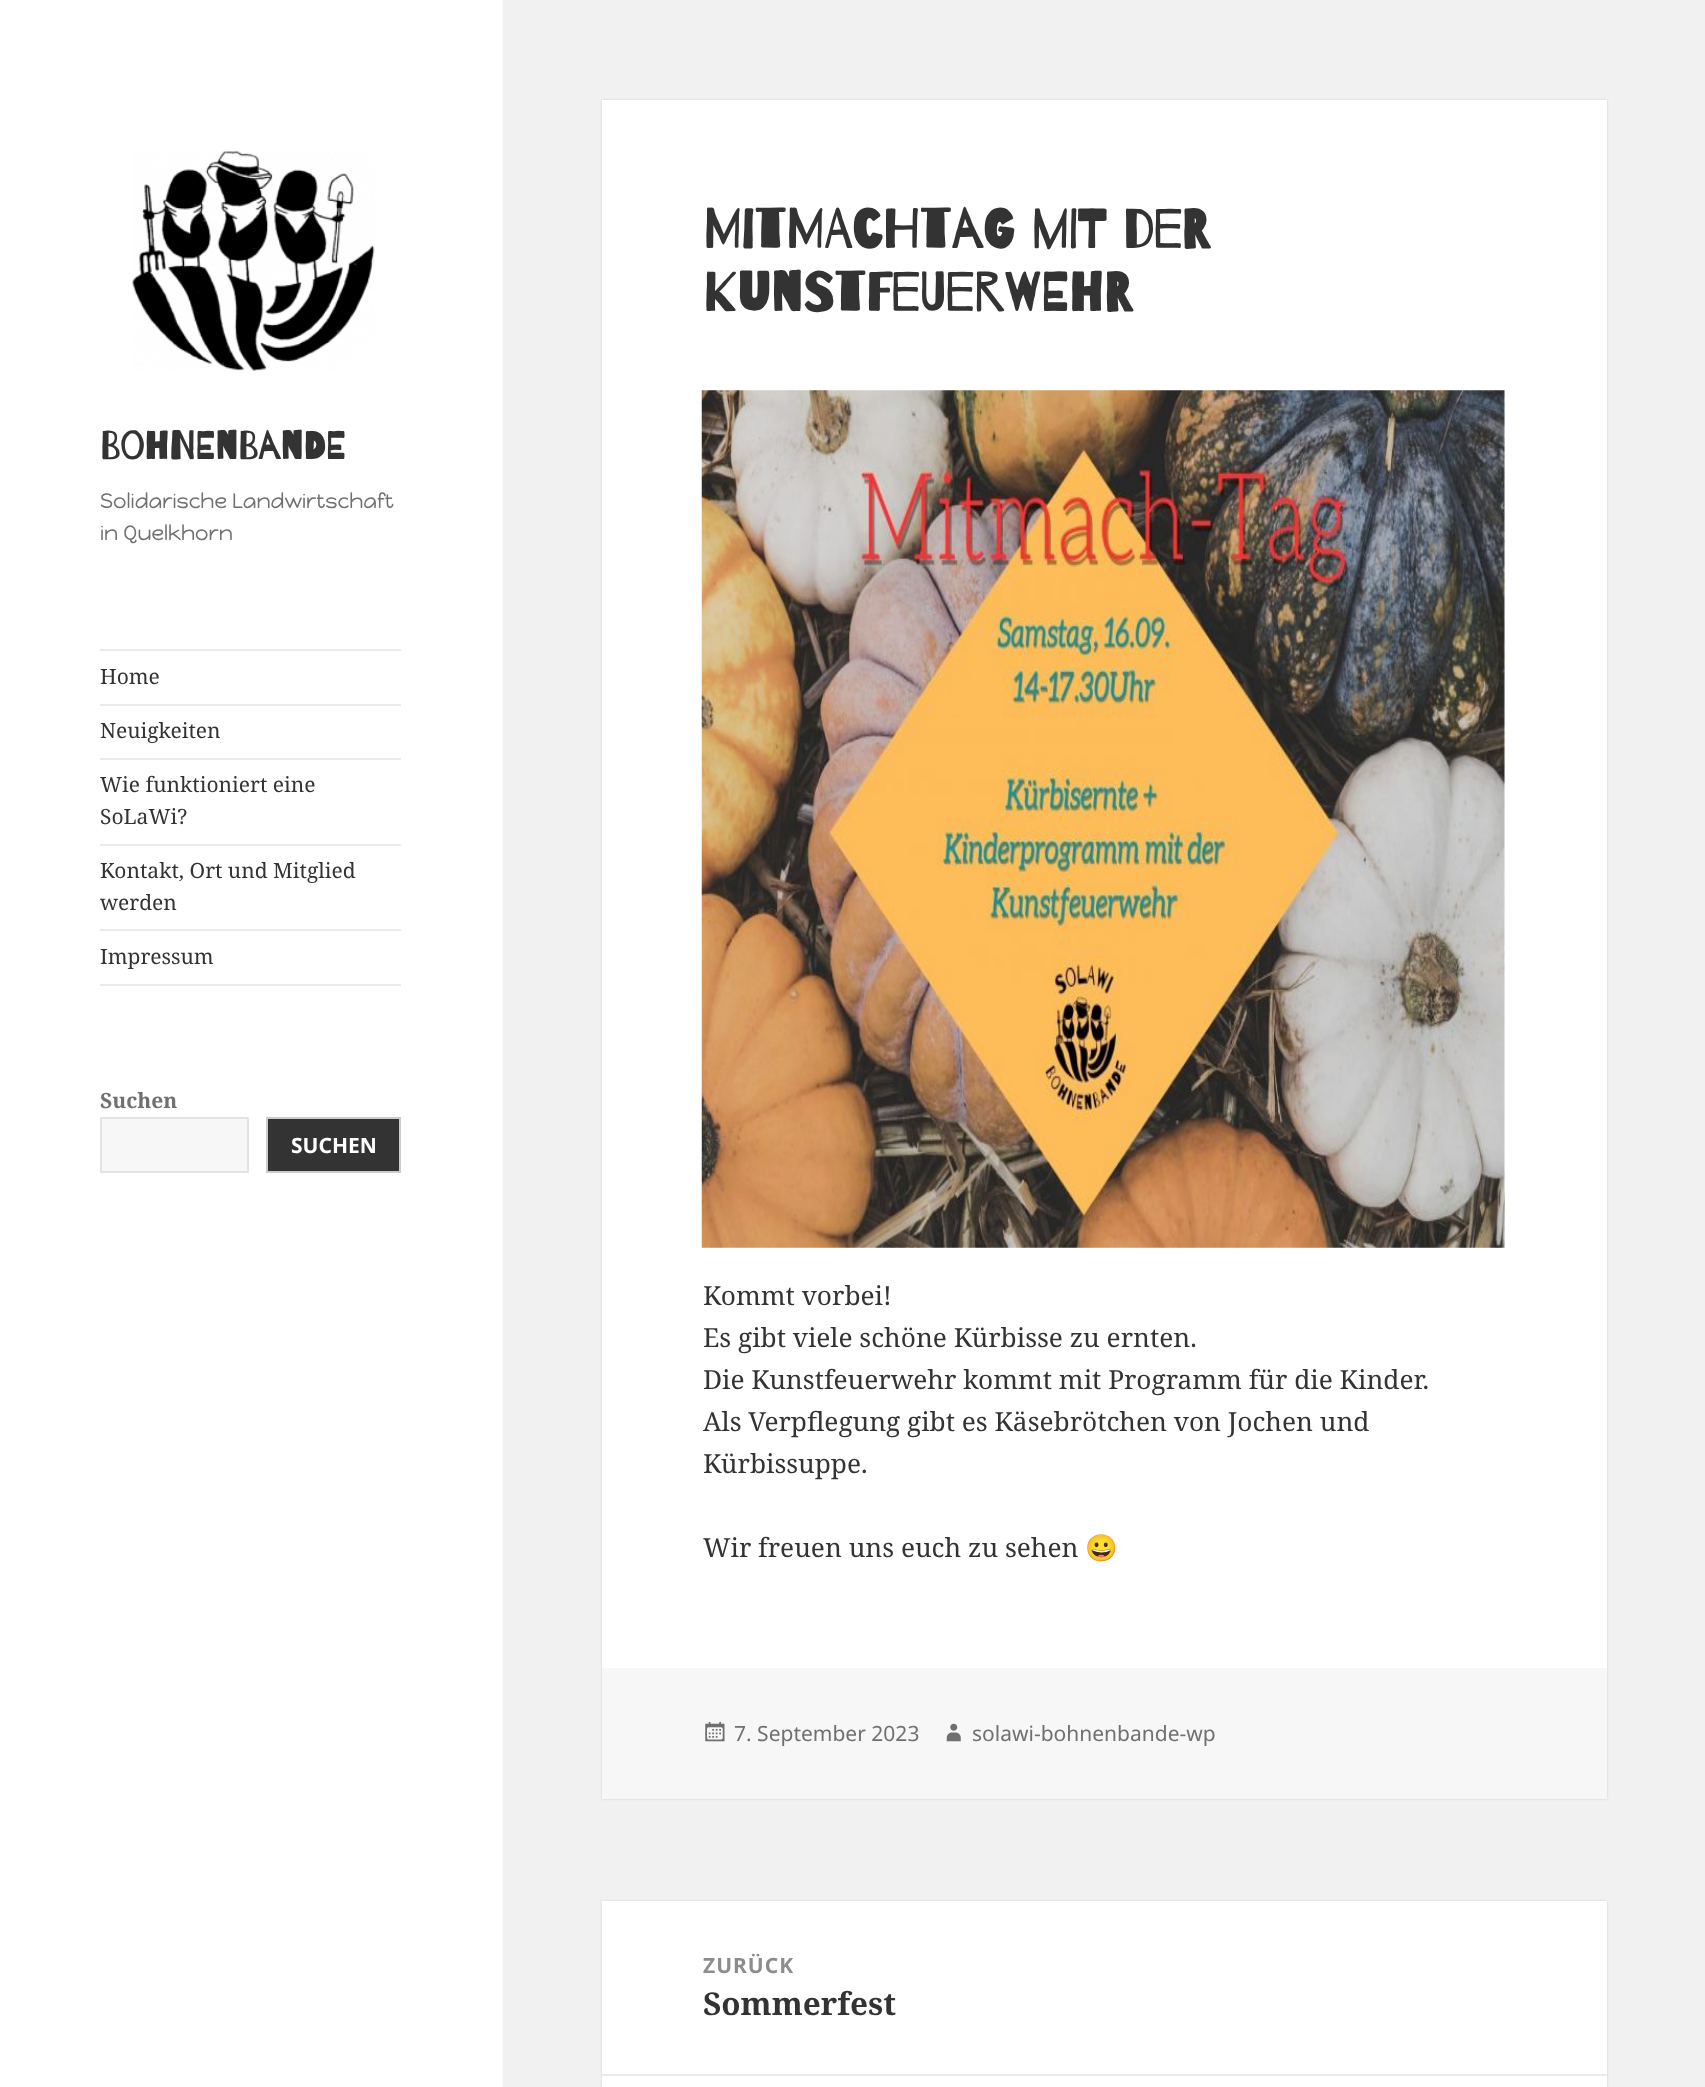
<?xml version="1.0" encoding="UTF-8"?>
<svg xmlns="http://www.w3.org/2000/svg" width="1705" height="2087">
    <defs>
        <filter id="blur1" x="-50%" y="-200%" width="200%" height="500%"><feGaussianBlur stdDeviation="1"/></filter>
    </defs>
    <rect width="100%" height="100%" fill="#F1F1F1"/>
    <rect x="0" y="0" width="502" height="2087" fill="#FFFFFF"/>
    <rect x="502" y="0" width="1" height="2087" fill="#F9F9F9"/>
    <image x="132" y="151" width="243" height="220" href="img_01.png"/>
    <text x="100" y="459" font-family="Barrio" font-size="38.5" font-weight="700" fill="#333333">Bohnenbande</text>
    <text font-family="Happy Monkey" font-size="21" fill="#707070">
        <tspan x="100" y="508">Solidarische Landwirtschaft</tspan>
        <tspan x="100" y="540">in Quelkhorn</tspan>
    </text>
    <rect x="100" y="649" width="301" height="2" fill="#EBEBEB"/>
    <rect x="100" y="984" width="301" height="2" fill="#EBEBEB"/>
    <text x="100" y="684" font-family="Noto Serif" font-size="21" fill="#333333">Home</text>
    <rect x="100" y="704" width="301" height="2" fill="#EBEBEB"/>
    <text x="100" y="738" font-family="Noto Serif" font-size="21" fill="#333333">Neuigkeiten</text>
    <rect x="100" y="758" width="301" height="2" fill="#EBEBEB"/>
    <text font-family="Noto Serif" font-size="21" fill="#333333">
        <tspan x="100" y="792">Wie funktioniert eine</tspan>
        <tspan x="100" y="824">SoLaWi?</tspan>
    </text>
    <rect x="100" y="844" width="301" height="2" fill="#EBEBEB"/>
    <text font-family="Noto Serif" font-size="21" fill="#333333">
        <tspan x="100" y="878">Kontakt, Ort und Mitglied</tspan>
        <tspan x="100" y="910">werden</tspan>
    </text>
    <rect x="100" y="929" width="301" height="2" fill="#EBEBEB"/>
    <text x="100" y="964" font-family="Noto Serif" font-size="21" fill="#333333">Impressum</text>
    <text x="100" y="1108" font-family="Noto Serif" font-size="21" font-weight="700" fill="#707070">Suchen</text>
    <rect x="101" y="1118" width="147" height="54" fill="#F7F7F7" stroke="#E3E3E3" stroke-width="2"/>
    <rect x="267" y="1118" width="133" height="54" fill="#333333" stroke="#CCCCCC" stroke-width="2"/>
    <text x="291" y="1153" font-family="Noto Sans" font-size="21" font-weight="700" fill="#FFFFFF">SUCHEN</text>
    <rect x="602" y="100" width="1005" height="1699" fill="#000000" fill-opacity="0.15" filter="url(#blur1)"/>
    <rect x="602" y="100" width="1005" height="1568" fill="#FFFFFF"/>
    <text font-family="Barrio" font-size="54.25" font-weight="700" fill="#333333">
        <tspan x="703" y="248">Mitmachtag mit der</tspan>
        <tspan x="703" y="311">Kunstfeuerwehr</tspan>
    </text>
    <image x="701" y="390" width="804" height="858" href="img_02.png"/>
    <text font-family="Noto Serif" font-size="26.25" fill="#333333">
        <tspan x="703" y="1305">Kommt vorbei!</tspan>
        <tspan x="703" y="1347">Es gibt viele schöne Kürbisse zu ernten.</tspan>
        <tspan x="703" y="1389">Die Kunstfeuerwehr kommt mit Programm für die Kinder.</tspan>
        <tspan x="703" y="1431">Als Verpflegung gibt es Käsebrötchen von Jochen und</tspan>
        <tspan x="703" y="1473">Kürbissuppe.</tspan>
    </text>
    <text x="703" y="1557" font-family="Noto Serif" font-size="26.25" fill="#333333">Wir freuen uns euch zu sehen</text>
    <text x="1085" y="1557" font-family="Noto Color Emoji" font-size="26.25" fill="#333333">😀</text>
    <rect x="602" y="1668" width="1005" height="131" fill="#F7F7F7"/>
    <image x="705" y="1722" width="20" height="20" href="img_03.png"/>
    <text x="734" y="1741" font-family="Noto Sans" font-size="21" fill="#707070">7. September 2023</text>
    <image x="946" y="1723" width="15" height="19" href="img_04.png"/>
    <text x="972" y="1741" font-family="Noto Sans" font-size="21" fill="#707070">solawi-bohnenbande-wp</text>
    <rect x="602" y="1901" width="1005" height="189" fill="#000000" fill-opacity="0.15" filter="url(#blur1)"/>
    <rect x="602" y="1901" width="1005" height="186" fill="#FFFFFF"/>
    <text x="703" y="1973" font-family="Noto Sans" font-size="21" font-weight="700" letter-spacing="1" fill="#8D8D8D">ZURÜCK</text>
    <text x="703" y="2015" font-family="Noto Serif" font-size="31.5" font-weight="700" fill="#333333">Sommerfest</text>
    <rect x="602" y="2074" width="1005" height="2" fill="#EBEBEB"/>
</svg>
